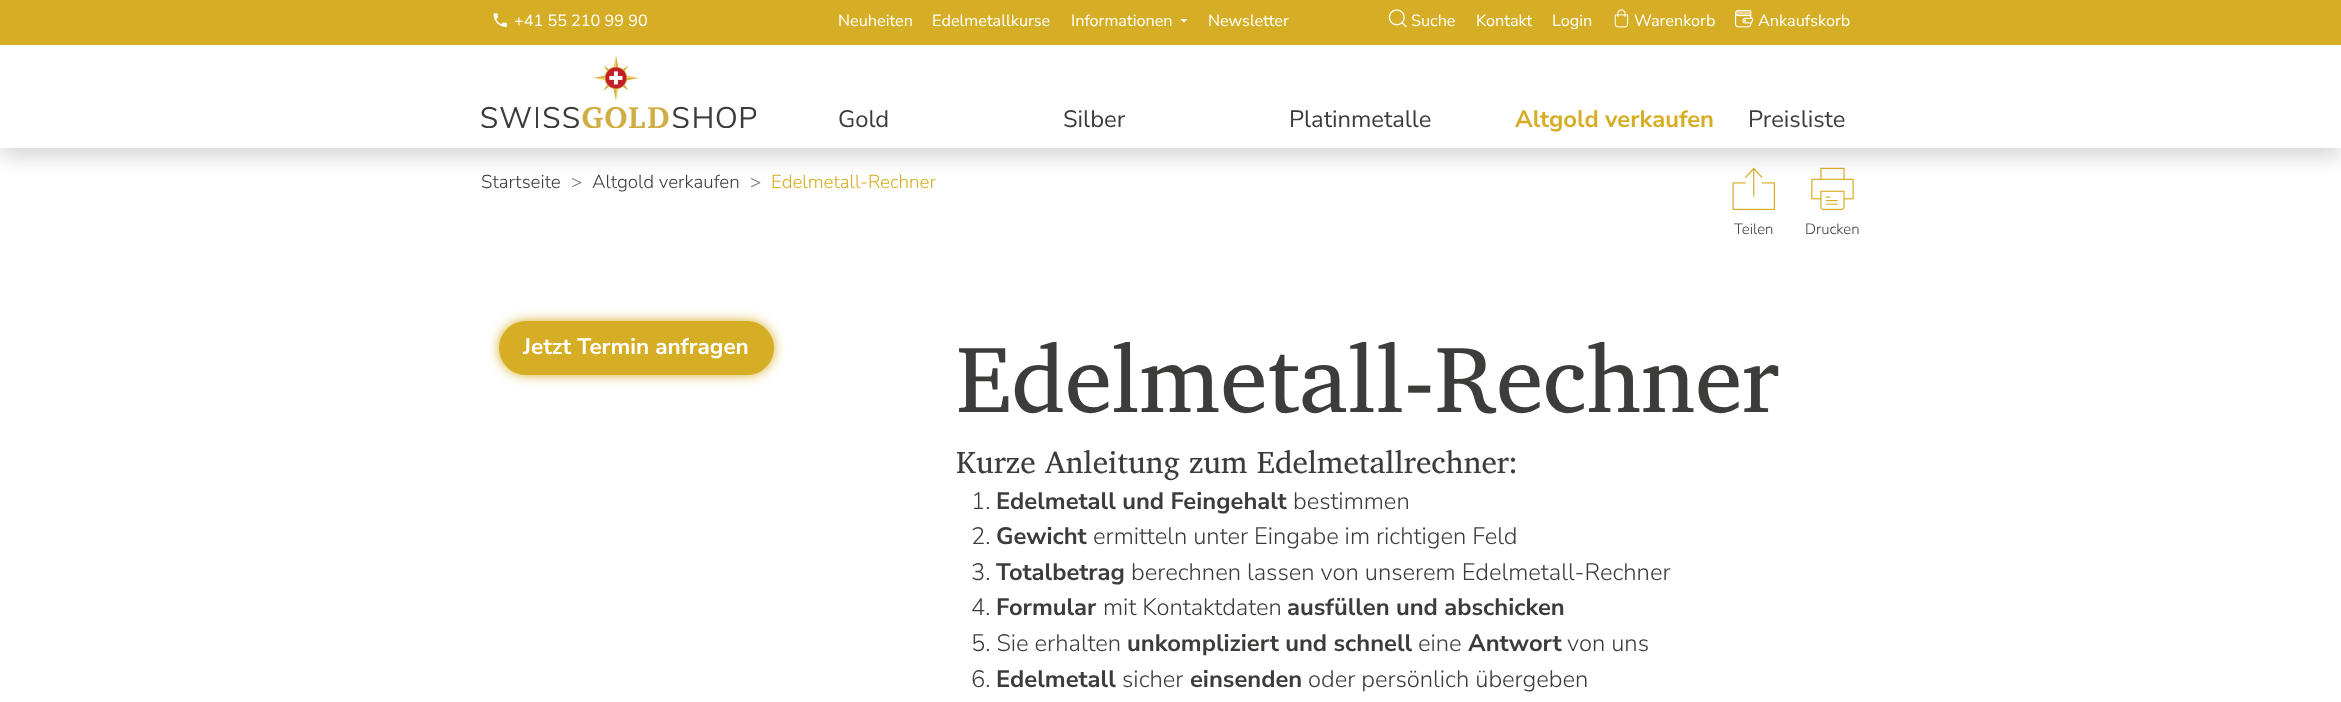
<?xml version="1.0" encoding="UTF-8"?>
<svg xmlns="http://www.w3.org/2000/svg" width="2341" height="702">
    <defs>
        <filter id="blur1" x="-50%" y="-200%" width="200%" height="500%"><feGaussianBlur stdDeviation="10"/></filter>
        <filter id="blur2" x="-50%" y="-200%" width="200%" height="500%"><feGaussianBlur stdDeviation="6"/></filter>
    </defs>
    <rect width="100%" height="100%" fill="#FFFFFF"/>
    <image x="1732" y="167" width="43" height="43" href="img_06.png"/>
    <image x="1811" y="167" width="43" height="43" href="img_07.png"/>
    <rect x="0" y="10" width="2341" height="148" fill="#000000" fill-opacity="0.15" filter="url(#blur1)"/>
    <rect x="0" y="45" width="2341" height="103" fill="#FFFFFF"/>
    <rect x="0" y="0" width="2341" height="45" fill="#D6AE25"/>
    <image x="493" y="13" width="14" height="14" href="img_01.png"/>
    <text x="514" y="26" font-family="'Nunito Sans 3'" font-size="16.25" font-weight="200" fill="#FFFFFF">+41 55 210 99 90</text>
    <text x="838" y="26" font-family="'Nunito Sans 3'" font-size="16.25" font-weight="200" fill="#FFFFFF">Neuheiten</text>
    <text x="932" y="26" font-family="'Nunito Sans 3'" font-size="16.25" font-weight="200" fill="#FFFFFF">Edelmetallkurse</text>
    <text x="1071" y="26" font-family="'Nunito Sans 3'" font-size="16.25" font-weight="200" fill="#FFFFFF">Informationen</text>
    <path d="M 1180 19 H 1187.5 L 1184 22.5 Z" fill="#FFFFFF"/>
    <text x="1208" y="26" font-family="'Nunito Sans 3'" font-size="16.25" font-weight="200" fill="#FFFFFF">Newsletter</text>
    <image x="1388" y="9" width="19" height="19" href="img_02.png"/>
    <text x="1411" y="26" font-family="'Nunito Sans 3'" font-size="16.25" font-weight="200" fill="#FFFFFF">Suche</text>
    <text x="1476" y="26" font-family="'Nunito Sans 3'" font-size="16.25" font-weight="200" fill="#FFFFFF">Kontakt</text>
    <text x="1552" y="26" font-family="'Nunito Sans 3'" font-size="16.25" font-weight="200" fill="#FFFFFF">Login</text>
    <image x="1614" y="9" width="15" height="19" href="img_03.png"/>
    <text x="1634" y="26" font-family="'Nunito Sans 3'" font-size="16.25" font-weight="200" fill="#FFFFFF">Warenkorb</text>
    <image x="1735" y="9" width="18" height="19" href="img_04.png"/>
    <text x="1758" y="26" font-family="'Nunito Sans 3'" font-size="16.25" font-weight="200" fill="#FFFFFF">Ankaufskorb</text>
    <image x="481" y="55" width="275" height="73" href="img_05.png"/>
    <text x="838" y="127" font-family="'Nunito Sans 3'" font-size="23.75" font-weight="200" fill="#3C3C3B">Gold</text>
    <text x="1063" y="127" font-family="'Nunito Sans 3'" font-size="23.75" font-weight="200" fill="#3C3C3B">Silber</text>
    <text x="1289" y="127" font-family="'Nunito Sans 3'" font-size="23.75" font-weight="200" fill="#3C3C3B">Platinmetalle</text>
    <text x="1515" y="127" font-family="'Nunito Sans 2'" font-size="23.75" font-weight="200" fill="#D6AE25">Altgold verkaufen</text>
    <text x="1748" y="127" font-family="'Nunito Sans 3'" font-size="23.75" font-weight="200" fill="#3C3C3B">Preisliste</text>
    <text x="481" y="188" font-family="Nunito Sans" font-size="18.75" font-weight="200" fill="#3C3C3B">Startseite</text>
    <text x="571" y="188" font-family="Nunito Sans" font-size="18.75" font-weight="200" fill="#6D6D6C">&gt;</text>
    <text x="592" y="188" font-family="Nunito Sans" font-size="18.75" font-weight="200" fill="#3C3C3B">Altgold verkaufen</text>
    <text x="750" y="188" font-family="Nunito Sans" font-size="18.75" font-weight="200" fill="#6D6D6C">&gt;</text>
    <text x="771" y="188" font-family="Nunito Sans" font-size="18.75" font-weight="200" fill="#D6AE25">Edelmetall-Rechner</text>
    <text x="1734" y="234" font-family="Nunito Sans" font-size="15" font-weight="200" fill="#3C3C3B">Teilen</text>
    <text x="1805" y="234" font-family="Nunito Sans" font-size="15" font-weight="200" fill="#3C3C3B">Drucken</text>
    <rect x="499" y="321" width="275" height="54" rx="27" fill="#D6AE25" filter="url(#blur2)"/>
    <rect x="500.5" y="322.5" width="272" height="51" rx="25.5" fill="#D6AE25" stroke="#D6AE25" stroke-width="3"/>
    <text x="523" y="354" font-family="'Nunito Sans 2'" font-size="22.5" font-weight="200" fill="#FFFFFF">Jetzt Termin anfragen</text>
    <text x="956" y="412" font-family="Charis SIL" font-size="95" fill="#3C3C3B">Edelmetall-Rechner</text>
    <text x="956" y="473" font-family="Charis SIL" font-size="31.2" fill="#3C3C3B">Kurze Anleitung zum Edelmetallrechner:</text>
    <text x="971" y="509" font-family="Nunito Sans" font-size="23.75" font-weight="200" fill="#3C3C3B">1.</text>
    <text x="996" y="509" font-family="'Nunito Sans 2'" font-size="23.75" font-weight="200" fill="#3C3C3B">Edelmetall und Feingehalt</text>
    <text x="1293" y="509" font-family="Nunito Sans" font-size="23.75" font-weight="200" fill="#3C3C3B">bestimmen</text>
    <text x="971" y="544" font-family="Nunito Sans" font-size="23.75" font-weight="200" fill="#3C3C3B">2.</text>
    <text x="996" y="544" font-family="'Nunito Sans 2'" font-size="23.75" font-weight="200" fill="#3C3C3B">Gewicht</text>
    <text x="1093" y="544" font-family="Nunito Sans" font-size="23.75" font-weight="200" fill="#3C3C3B">ermitteln unter Eingabe im richtigen Feld</text>
    <text x="971" y="580" font-family="Nunito Sans" font-size="23.75" font-weight="200" fill="#3C3C3B">3.</text>
    <text x="996" y="580" font-family="'Nunito Sans 2'" font-size="23.75" font-weight="200" fill="#3C3C3B">Totalbetrag</text>
    <text x="1131" y="580" font-family="Nunito Sans" font-size="23.75" font-weight="200" fill="#3C3C3B">berechnen lassen von unserem Edelmetall-Rechner</text>
    <text x="971" y="615" font-family="Nunito Sans" font-size="23.75" font-weight="200" fill="#3C3C3B">4.</text>
    <text x="996" y="615" font-family="'Nunito Sans 2'" font-size="23.75" font-weight="200" fill="#3C3C3B">Formular</text>
    <text x="1103" y="615" font-family="Nunito Sans" font-size="23.75" font-weight="200" fill="#3C3C3B">mit Kontaktdaten</text>
    <text x="1287" y="615" font-family="'Nunito Sans 2'" font-size="23.75" font-weight="200" fill="#3C3C3B">ausfüllen und abschicken</text>
    <text x="971" y="651" font-family="Nunito Sans" font-size="23.75" font-weight="200" fill="#3C3C3B">5. Sie erhalten</text>
    <text x="1127" y="651" font-family="'Nunito Sans 2'" font-size="23.75" font-weight="200" fill="#3C3C3B">unkompliziert und schnell</text>
    <text x="1418" y="651" font-family="Nunito Sans" font-size="23.75" font-weight="200" fill="#3C3C3B">eine</text>
    <text x="1468" y="651" font-family="'Nunito Sans 2'" font-size="23.75" font-weight="200" fill="#3C3C3B">Antwort</text>
    <text x="1567" y="651" font-family="Nunito Sans" font-size="23.75" font-weight="200" fill="#3C3C3B">von uns</text>
    <text x="971" y="687" font-family="Nunito Sans" font-size="23.75" font-weight="200" fill="#3C3C3B">6.</text>
    <text x="996" y="687" font-family="'Nunito Sans 2'" font-size="23.75" font-weight="200" fill="#3C3C3B">Edelmetall</text>
    <text x="1122" y="687" font-family="Nunito Sans" font-size="23.75" font-weight="200" fill="#3C3C3B">sicher</text>
    <text x="1190" y="687" font-family="'Nunito Sans 2'" font-size="23.75" font-weight="200" fill="#3C3C3B">einsenden</text>
    <text x="1308" y="687" font-family="Nunito Sans" font-size="23.75" font-weight="200" fill="#3C3C3B">oder persönlich übergeben</text>
</svg>
